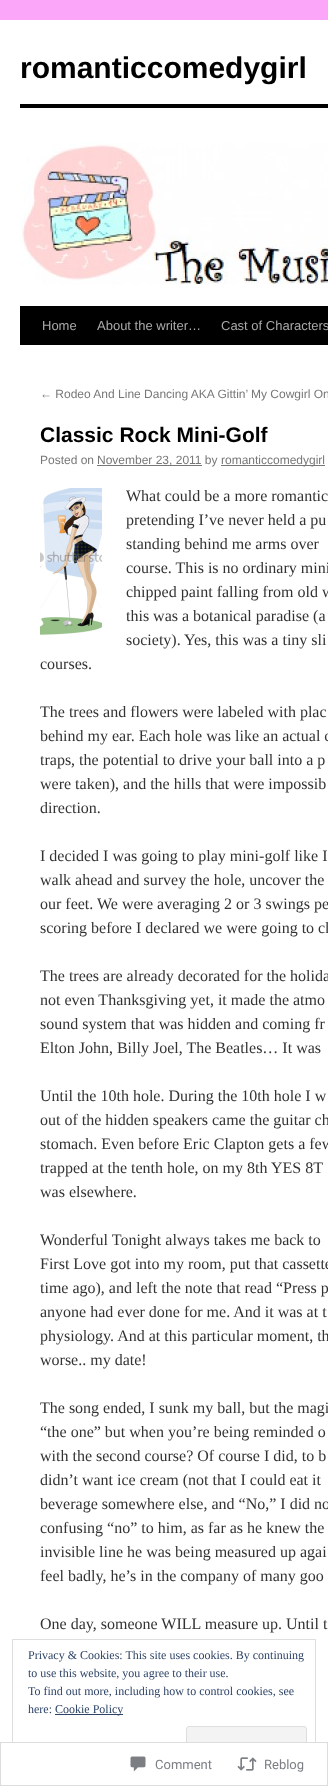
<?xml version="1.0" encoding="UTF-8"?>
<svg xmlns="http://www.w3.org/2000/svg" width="328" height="1786">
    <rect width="100%" height="100%" fill="#FCA6FA"/>
    <rect x="0" y="20" width="328" height="1766" fill="#FFFFFF"/>
    <text x="20" y="78" font-family="Liberation Sans" font-size="30" font-weight="700" fill="#000000">romanticcomedygirl</text>
    <rect x="20" y="104" width="308" height="4" fill="#000000"/>
    <rect x="20" y="306" width="308" height="39" fill="#000000"/>
    <image x="20" y="142" width="308" height="143" href="img_01.png"/>
    <text x="42" y="330" font-family="Liberation Sans" font-size="13" fill="#AAAAAA">Home</text>
    <text x="97" y="330" font-family="Liberation Sans" font-size="13" fill="#AAAAAA">About the writer…</text>
    <text x="221" y="330" font-family="Liberation Sans" font-size="13" fill="#AAAAAA">Cast of Characters</text>
    <text x="40" y="398" font-family="Liberation Sans" font-size="12" fill="#777777">← Rodeo And Line Dancing AKA Gittin’ My Cowgirl On</text>
    <text x="40" y="442" font-family="Liberation Sans" font-size="21" font-weight="700" fill="#000000">Classic Rock Mini-Golf</text>
    <text x="40" y="464" font-family="Liberation Sans" font-size="12" fill="#777777">Posted on</text>
    <rect x="97" y="465" width="105" height="1" fill="#777777"/>
    <text x="97" y="464" font-family="Liberation Sans" font-size="12" fill="#777777">November 23, 2011 by</text>
    <rect x="221" y="465" width="104" height="1" fill="#777777"/>
    <text x="221" y="464" font-family="Liberation Sans" font-size="12" fill="#777777">romanticcomedygirl</text>
    <image x="40" y="488" width="62" height="147" href="img_02.png"/>
    <text font-family="Liberation Serif" font-size="16" fill="#333333">
        <tspan x="126" y="501">What could be a more romantic</tspan>
        <tspan x="126" y="525">pretending I’ve never held a pu</tspan>
        <tspan x="126" y="549">standing behind me arms over</tspan>
        <tspan x="126" y="573">course. This is no ordinary mini</tspan>
        <tspan x="126" y="597">chipped paint falling from old w</tspan>
        <tspan x="126" y="621">this was a botanical paradise (a</tspan>
        <tspan x="126" y="645">society). Yes, this was a tiny sli</tspan>
    </text>
    <text x="40" y="669" font-family="Liberation Serif" font-size="16" fill="#333333">courses.</text>
    <text font-family="Liberation Serif" font-size="16" fill="#333333">
        <tspan x="40" y="717">The trees and flowers were labeled with plac</tspan>
        <tspan x="40" y="741">behind my ear. Each hole was like an actual c</tspan>
        <tspan x="40" y="765">traps, the potential to drive your ball into a p</tspan>
        <tspan x="40" y="789">were taken), and the hills that were impossib</tspan>
        <tspan x="40" y="813">direction.</tspan>
    </text>
    <text font-family="Liberation Serif" font-size="16" fill="#333333">
        <tspan x="40" y="861">I decided I was going to play mini-golf like I</tspan>
        <tspan x="40" y="885">walk ahead and survey the hole, uncover the</tspan>
        <tspan x="40" y="909">our feet. We were averaging 2 or 3 swings pe</tspan>
        <tspan x="40" y="933">scoring before I declared we were going to ch</tspan>
    </text>
    <text font-family="Liberation Serif" font-size="16" fill="#333333">
        <tspan x="40" y="981">The trees are already decorated for the holida</tspan>
        <tspan x="40" y="1005">not even Thanksgiving yet, it made the atmo</tspan>
        <tspan x="40" y="1029">sound system that was hidden and coming fr</tspan>
        <tspan x="40" y="1053">Elton John, Billy Joel, The Beatles… It was</tspan>
    </text>
    <text font-family="Liberation Serif" font-size="16" fill="#333333">
        <tspan x="40" y="1101">Until the 10th hole. During the 10th hole I w</tspan>
        <tspan x="40" y="1125">out of the hidden speakers came the guitar ch</tspan>
        <tspan x="40" y="1149">stomach. Even before Eric Clapton gets a few</tspan>
        <tspan x="40" y="1173">trapped at the tenth hole, on my 8th YES 8T</tspan>
        <tspan x="40" y="1197">was elsewhere.</tspan>
    </text>
    <text font-family="Liberation Serif" font-size="16" fill="#333333">
        <tspan x="40" y="1245">Wonderful Tonight always takes me back to</tspan>
        <tspan x="40" y="1269">First Love got into my room, put that cassette</tspan>
        <tspan x="40" y="1293">time ago), and left the note that read “Press p</tspan>
        <tspan x="40" y="1317">anyone had ever done for me. And it was at t</tspan>
        <tspan x="40" y="1341">physiology. And at this particular moment, th</tspan>
        <tspan x="40" y="1365">worse.. my date!</tspan>
    </text>
    <text font-family="Liberation Serif" font-size="16" fill="#333333">
        <tspan x="40" y="1413">The song ended, I sunk my ball, but the magi</tspan>
        <tspan x="40" y="1437">“the one” but when you’re being reminded o</tspan>
        <tspan x="40" y="1461">with the second course? Of course I did, to b</tspan>
        <tspan x="40" y="1485">didn’t want ice cream (not that I could eat it</tspan>
        <tspan x="40" y="1509">beverage somewhere else, and “No,” I did no</tspan>
        <tspan x="40" y="1533">confusing “no” to him, as far as he knew the</tspan>
        <tspan x="40" y="1557">invisible line he was being measured up agai</tspan>
        <tspan x="40" y="1581">feel badly, he’s in the company of many goo</tspan>
    </text>
    <text x="40" y="1629" font-family="Liberation Serif" font-size="16" fill="#333333">One day, someone WILL measure up. Until t</text>
    <rect x="12.5" y="1639.5" width="303" height="134" fill="none" stroke="#DEDEDE"/>
    <text font-family="Liberation Serif" font-size="12" fill="#2E4467">
        <tspan x="28" y="1659">Privacy &amp; Cookies: This site uses cookies. By continuing</tspan>
        <tspan x="28" y="1677">to use this website, you agree to their use.</tspan>
        <tspan x="28" y="1695">To find out more, including how to control cookies, see</tspan>
        <tspan x="28" y="1713">here:</tspan>
    </text>
    <rect x="55" y="1714" width="68" height="1" fill="#2E4467"/>
    <text x="55" y="1713" font-family="Liberation Serif" font-size="12" fill="#2E4467">Cookie Policy</text>
    <rect x="186.5" y="1726.5" width="120" height="38" rx="2.5" fill="#F3F3F3" stroke="#DEDEDE"/>
    <rect x="12" y="1742" width="304" height="32" fill="#FFFFFF" fill-opacity="0.98"/>
    <rect x="0.5" y="1742.5" width="327" height="43" fill="none" stroke="#DCDCDE" stroke-opacity="0.98"/>
    <image x="130" y="1756" width="16" height="16" href="img_03.png"/>
    <text x="155" y="1769" font-family="Roboto" font-size="13" fill="#7B7F84">Comment</text>
    <image x="237" y="1757" width="20" height="14" href="img_04.png"/>
    <text x="264" y="1769" font-family="Roboto" font-size="13" fill="#7B7F84">Reblog</text>
</svg>
